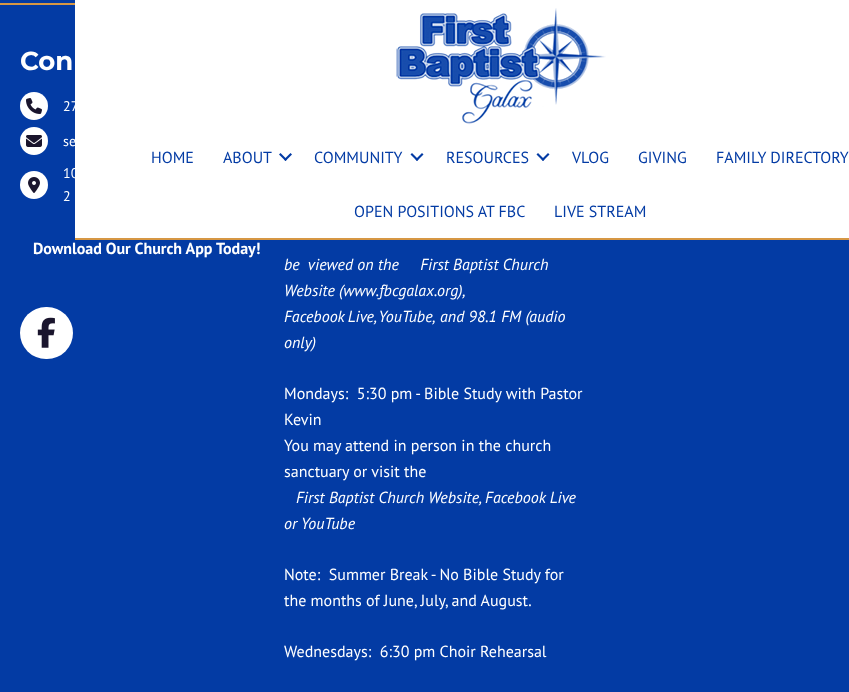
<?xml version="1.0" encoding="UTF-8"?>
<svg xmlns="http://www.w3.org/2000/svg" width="849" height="692">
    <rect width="100%" height="100%" fill="#033BA4"/>
    <rect x="0" y="3" width="75" height="2" fill="#D69744"/>
    <text x="20" y="70" font-family="Montserrat" font-size="26" font-weight="100" fill="#FFFFFF">Con</text>
    <circle cx="34" cy="106" r="14" fill="#FFFFFF"/>
    <image x="26" y="98" width="16" height="16" href="img_01.png"/>
    <text x="63" y="111" font-family="PT Sans" font-size="14" fill="#FFFFFF">27</text>
    <circle cx="34" cy="141" r="14" fill="#FFFFFF"/>
    <image x="26" y="135" width="16" height="12" href="img_02.png"/>
    <text x="63" y="146" font-family="PT Sans" font-size="14" fill="#FFFFFF">se</text>
    <circle cx="34" cy="185" r="14" fill="#FFFFFF"/>
    <image x="28" y="177" width="12" height="16" href="img_03.png"/>
    <text font-family="PT Sans" font-size="14" fill="#FFFFFF">
        <tspan x="63" y="178">10</tspan>
        <tspan x="63" y="201">2</tspan>
    </text>
    <text x="33" y="254" font-family="PT Sans" font-size="16" font-weight="700" fill="#FFFFFF">Download Our Church App Today!</text>
    <rect x="20" y="307" width="53" height="52" rx="26" fill="#FFFFFF"/>
    <image x="37" y="317" width="18" height="31" href="img_04.png"/>
    <text font-family="PT Sans" font-size="16" font-style="italic" fill="#FFFFFF" xml:space="preserve"><tspan x="284" y="270">be  viewed on the     First Baptist Church</tspan><tspan x="284" y="296">Website (www.fbcgalax.org),</tspan><tspan x="284" y="322" word-spacing="-1">Facebook Live, YouTube,</tspan></text>
    <text x="440" y="322" font-family="PT Sans" font-size="16" font-style="italic" fill="#FFFFFF">and 98.1 FM (audio</text>
    <text x="284" y="348" font-family="PT Sans" font-size="16" font-style="italic" fill="#FFFFFF">only)</text>
    <text font-family="PT Sans" font-size="16" fill="#FFFFFF" xml:space="preserve"><tspan x="284" y="399">Mondays:  5:30 pm - Bible Study with Pastor</tspan><tspan x="284" y="425">Kevin</tspan><tspan x="284" y="451">You may attend in person in the church</tspan><tspan x="284" y="477">sanctuary or visit the</tspan></text>
    <text x="296" y="503" font-family="PT Sans" font-size="16" font-style="italic" fill="#FFFFFF">First Baptist Church Website, Facebook Live</text>
    <text x="284" y="529" font-family="PT Sans" font-size="16" font-style="italic" fill="#FFFFFF">or YouTube</text>
    <text font-family="PT Sans" font-size="16" fill="#FFFFFF" xml:space="preserve"><tspan x="284" y="580">Note:  Summer Break - No Bible Study for</tspan><tspan x="284" y="606">the months of June, July, and August.</tspan></text>
    <text x="284" y="657" font-family="PT Sans" font-size="16" fill="#FFFFFF" xml:space="preserve">Wednesdays:  6:30 pm Choir Rehearsal</text>
    <rect x="75" y="0" width="774" height="238" fill="#FFFFFF"/>
    <rect x="75" y="238" width="774" height="2" fill="#D69744"/>
    <image x="396" y="8" width="210" height="117" href="img_05.png"/>
    <text x="151" y="163" font-family="PT Sans" font-size="16" fill="#033BA4">HOME</text>
    <text x="223" y="163" font-family="PT Sans" font-size="16" fill="#033BA4">ABOUT</text>
    <path d="M 290.5 153 L 292 154.5 L 285.5 161 L 284 159.5 Z" fill="#033BA4"/>
    <path d="M 280.5 153 L 287 159.5 L 285.5 161 L 279 154.5 Z" fill="#033BA4"/>
    <text x="314" y="163" font-family="PT Sans" font-size="16" fill="#033BA4">COMMUNITY</text>
    <path d="M 422 153 L 423.5 154.5 L 417 161 L 415.5 159.5 Z" fill="#033BA4"/>
    <path d="M 412 153 L 418.5 159.5 L 417 161 L 410.5 154.5 Z" fill="#033BA4"/>
    <text x="446" y="163" font-family="PT Sans" font-size="16" fill="#033BA4">RESOURCES</text>
    <path d="M 548 153 L 549.5 154.5 L 543 161 L 541.5 159.5 Z" fill="#033BA4"/>
    <path d="M 538 153 L 544.5 159.5 L 543 161 L 536.5 154.5 Z" fill="#033BA4"/>
    <text x="572" y="163" font-family="PT Sans" font-size="16" fill="#033BA4">VLOG</text>
    <text x="638" y="163" font-family="PT Sans" font-size="16" fill="#033BA4">GIVING</text>
    <text x="716" y="163" font-family="PT Sans" font-size="16" fill="#033BA4">FAMILY DIRECTORY</text>
    <text x="354" y="217" font-family="PT Sans" font-size="16" fill="#033BA4">OPEN POSITIONS AT FBC</text>
    <text x="554" y="217" font-family="PT Sans" font-size="16" fill="#033BA4">LIVE STREAM</text>
</svg>
